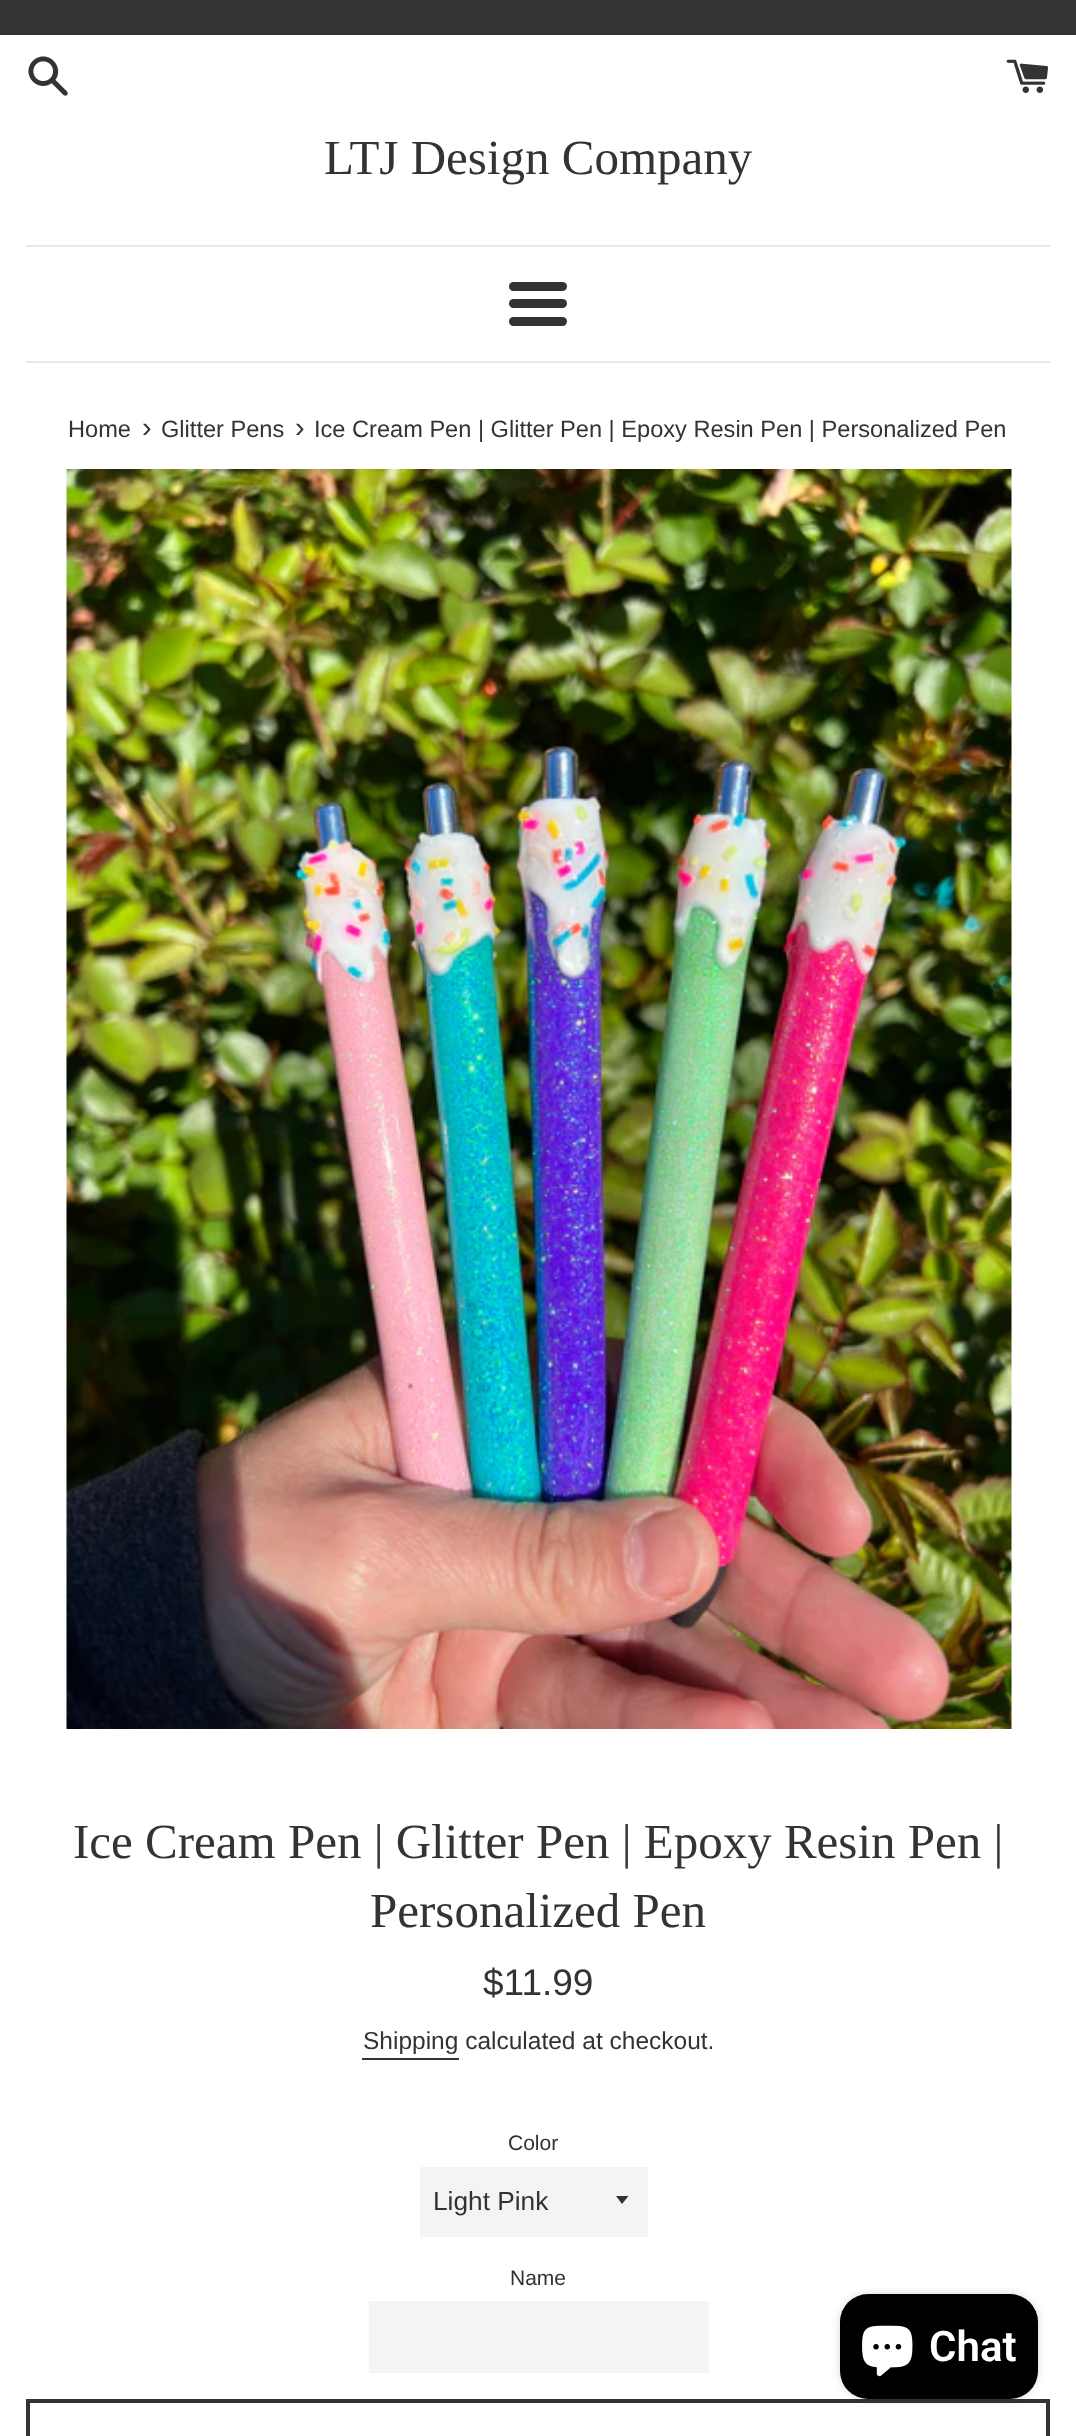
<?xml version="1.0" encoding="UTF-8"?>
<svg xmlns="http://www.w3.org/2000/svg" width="1076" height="2436">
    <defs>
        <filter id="blur1" x="-50%" y="-200%" width="200%" height="500%"><feGaussianBlur stdDeviation="4.5"/></filter>
    </defs>
    <rect width="100%" height="100%" fill="#FFFFFF"/>
    <rect x="0" y="0" width="1076" height="35" fill="#333333"/>
    <image x="28" y="56" width="40" height="40" href="img_01.png"/>
    <image x="1006" y="59" width="42" height="34" href="img_02.png"/>
    <text x="324" y="174" font-family="Liberation Serif" font-size="49" fill="#333333">LTJ Design Company</text>
    <rect x="26" y="245" width="1024" height="2" fill="#E8E8E8"/>
    <rect x="509" y="282" width="58" height="9" rx="4.5" fill="#333333"/>
    <rect x="509" y="299" width="58" height="9" rx="4.5" fill="#333333"/>
    <rect x="509" y="317" width="58" height="9" rx="4.5" fill="#333333"/>
    <rect x="26" y="361" width="1024" height="2" fill="#E8E8E8"/>
    <text x="68" y="437" font-family="Liberation Sans" font-size="23.6" fill="#333333">Home</text>
    <text x="142" y="437" font-family="Liberation Sans" font-size="29" fill="#333333">›</text>
    <text x="161" y="437" font-family="Liberation Sans" font-size="23.6" fill="#333333">Glitter Pens</text>
    <text x="295" y="437" font-family="Liberation Sans" font-size="29" fill="#333333">›</text>
    <text x="314" y="437" font-family="Liberation Sans" font-size="23.6" fill="#333333">Ice Cream Pen | Glitter Pen | Epoxy Resin Pen | Personalized Pen</text>
    <image x="66" y="469" width="946" height="1260" href="img_03.png"/>
    <text x="73" y="1858" font-family="Liberation Serif" font-size="49" fill="#333333">Ice Cream Pen | Glitter Pen | Epoxy Resin Pen |</text>
    <text x="370" y="1927" font-family="Liberation Serif" font-size="49" fill="#333333">Personalized Pen</text>
    <text x="483" y="1995" font-family="Liberation Sans" font-size="37" fill="#333333">$11.99</text>
    <text x="363" y="2049" font-family="Liberation Sans" font-size="24.5" fill="#333333">Shipping calculated at checkout.</text>
    <rect x="362" y="2058" width="97" height="2" fill="#333333"/>
    <text x="508" y="2150" font-family="Liberation Sans" font-size="21" fill="#333333">Color</text>
    <rect x="420" y="2167" width="228" height="70" fill="#F4F4F4"/>
    <path d="M 616 2196 L 622 2204 L 628.5 2196 Z" fill="#333333"/>
    <text x="433" y="2210" font-family="Liberation Sans" font-size="26.25" fill="#333333">Light Pink</text>
    <text x="510" y="2285" font-family="Liberation Sans" font-size="21" fill="#333333">Name</text>
    <rect x="369" y="2301" width="340" height="72" fill="#F4F4F4"/>
    <rect x="28" y="2401" width="1020" height="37" fill="none" stroke="#333333" stroke-width="4"/>
    <rect x="840" y="2294" width="198" height="105" rx="28" fill="#000000" fill-opacity="0.15" filter="url(#blur1)"/>
    <rect x="840" y="2294" width="198" height="105" rx="28" fill="#000000"/>
    <image x="862" y="2325" width="51" height="52" href="img_04.png"/>
    <text x="929" y="2361" font-family="Roboto" font-size="42" font-weight="600" fill="#FFFFFF">Chat</text>
</svg>
